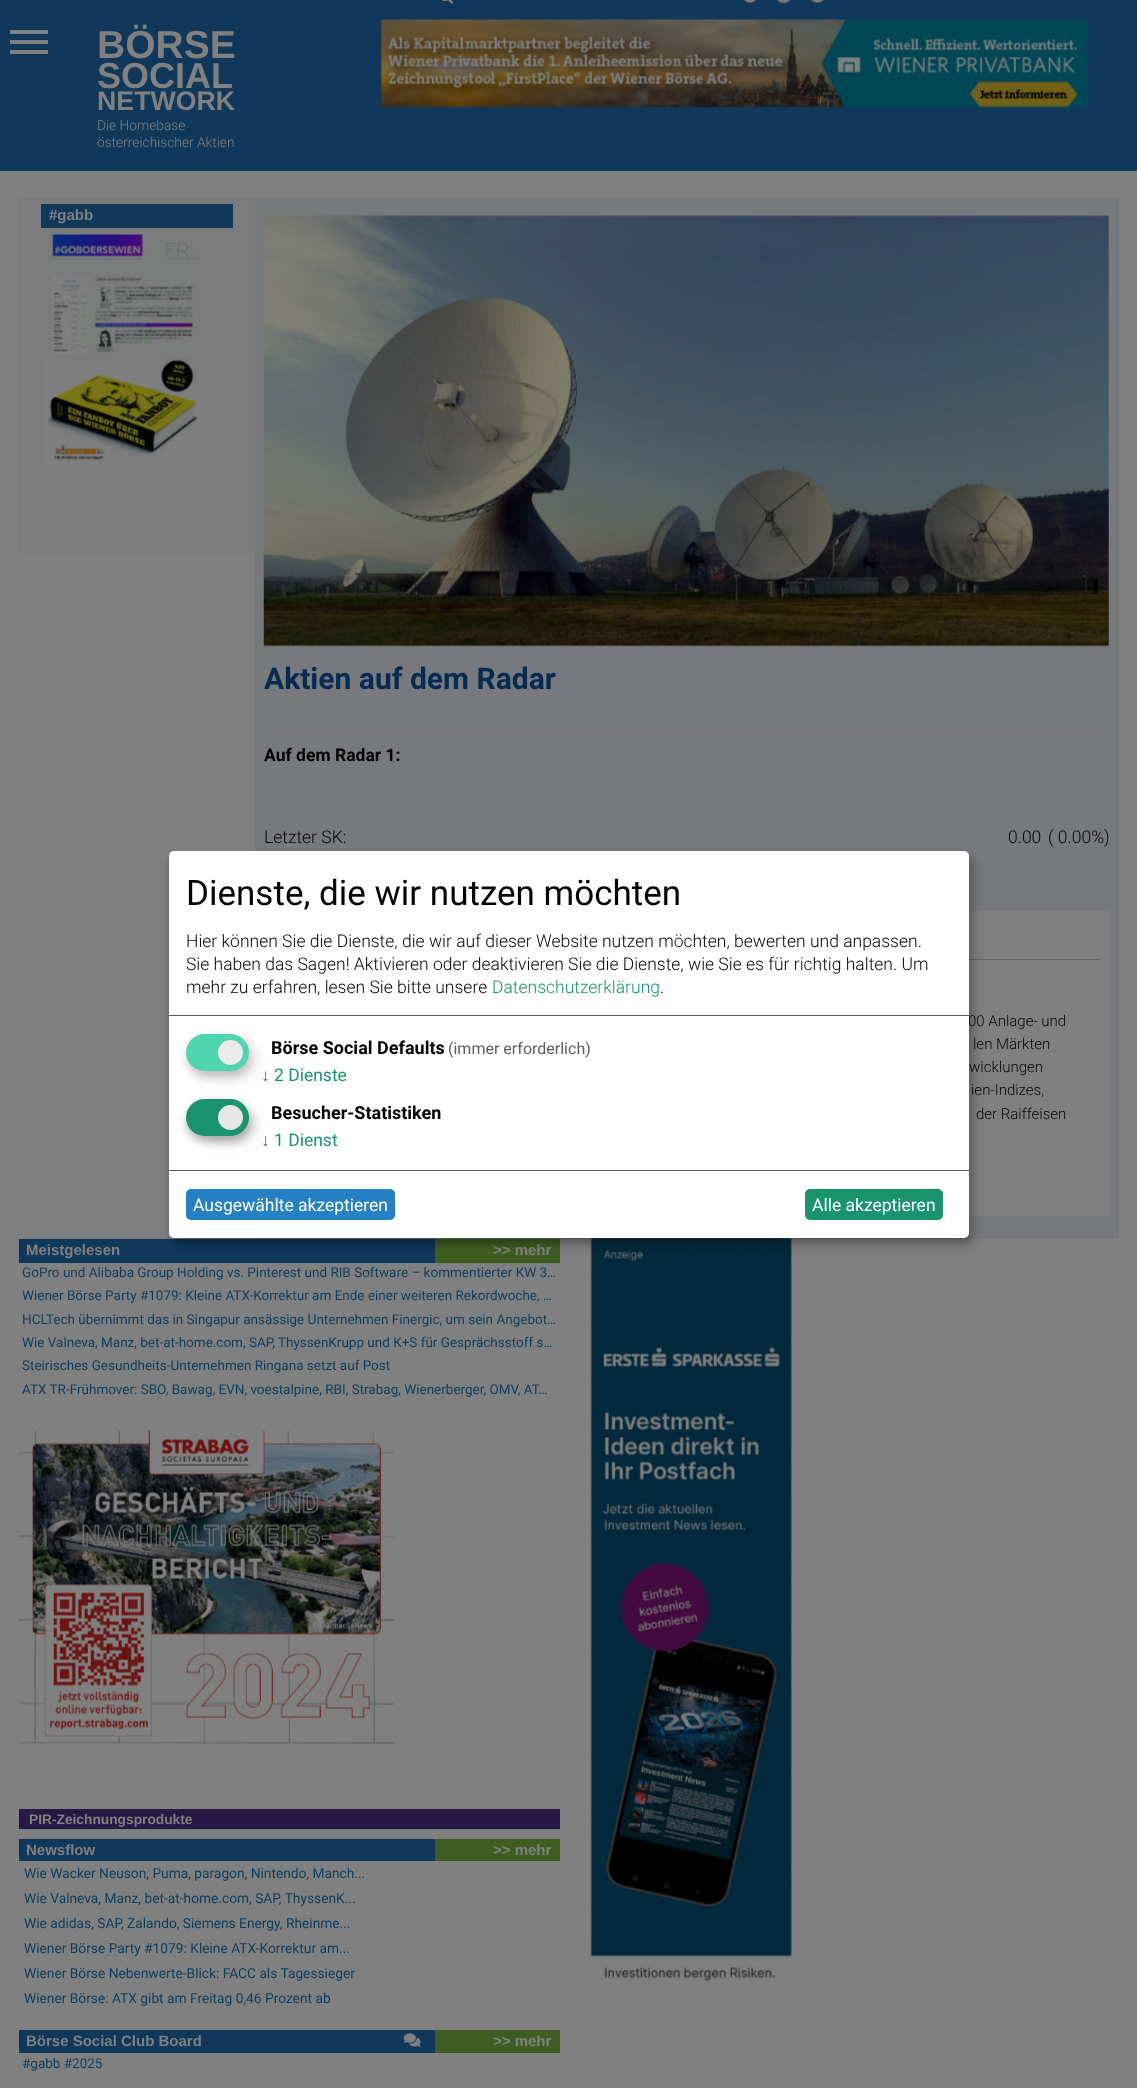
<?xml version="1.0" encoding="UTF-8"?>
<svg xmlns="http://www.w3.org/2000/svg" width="1137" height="2088">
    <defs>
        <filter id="blur1" x="-50%" y="-200%" width="200%" height="500%"><feGaussianBlur stdDeviation="6"/></filter>
        <filter id="blur2" x="-50%" y="-200%" width="200%" height="500%"><feGaussianBlur stdDeviation="4"/></filter>
    </defs>
    <rect width="100%" height="100%" fill="#808080"/>
    <rect x="0" y="0" width="1137" height="171" fill="#0F385B"/>
    <image x="441" y="0" width="13" height="4" href="img_01.png"/>
    <path d="M 554 -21 H 718 C 720 -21 722 -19 722 -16 V 9 L 721 12 C 722 11 723 9 723 8 V -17 C 723 -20 721 -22 718 -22 H 554 C 551 -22 549 -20 549 -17 V -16 C 549 -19 551 -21 554 -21 Z" fill="#0E3454"/>
    <image x="742" y="0" width="15" height="4" href="img_02.png"/>
    <image x="776" y="0" width="15" height="4" href="img_03.png"/>
    <image x="810" y="0" width="15" height="4" href="img_04.png"/>
    <rect x="10" y="50" width="38" height="4" fill="#808080"/>
    <rect x="10" y="40" width="38" height="4" fill="#808080"/>
    <rect x="10" y="30" width="38" height="4" fill="#808080"/>
    <text x="97" y="58" font-family="Arimo" font-size="39" font-weight="700" fill="#808080">BÖRSE</text>
    <text x="97" y="88" font-family="Arimo" font-size="36" font-weight="700" fill="#808080">SOCIAL</text>
    <text x="97" y="110" font-family="Arimo" font-size="26.75" font-weight="700" fill="#808080">NETWORK</text>
    <text font-family="Roboto" font-size="13.75" font-weight="300" fill="#808080">
        <tspan x="97" y="130">Die Homebase</tspan>
        <tspan x="97" y="147">österreichischer Aktien</tspan>
    </text>
    <image x="380" y="19" width="708" height="89" href="img_05.png"/>
    <rect x="19" y="198" width="236" height="355" fill="#7C7C7C"/>
    <rect x="41" y="204" width="192" height="24" fill="#0F385B"/>
    <text x="49" y="220" font-family="Arimo" font-size="15" font-weight="700" fill="#808080">#gabb</text>
    <image x="41" y="234" width="163" height="230" href="img_06.png"/>
    <rect x="255" y="198" width="864" height="1041" fill="#77797D"/>
    <image x="263" y="215" width="846" height="432" href="img_07.png"/>
    <text x="264" y="689" font-family="Roboto" font-size="30" font-weight="700" fill="#062B53">Aktien auf dem Radar</text>
    <rect x="264" y="734" width="846" height="1" fill="#797979"/>
    <text x="264" y="761" font-family="Roboto" font-size="17.5" font-weight="700" fill="#050505">Auf dem Radar 1:</text>
    <text x="264" y="843" font-family="Roboto" font-size="17.5" font-weight="300" fill="#050505">Letzter SK:</text>
    <text x="1008" y="843" font-family="Roboto" font-size="17.5" font-weight="300" fill="#050505">0.00</text>
    <text x="1048" y="843" font-family="Roboto" font-size="17.5" font-weight="300" fill="#050505">( 0.00%)</text>
    <rect x="969" y="911" width="141" height="305" fill="#808080"/>
    <rect x="969" y="959" width="131" height="1" fill="#656565"/>
    <text x="968" y="1026" font-family="Roboto" font-size="15" font-weight="300" fill="#050505">00 Anlage- und</text>
    <text x="973" y="1049" font-family="Roboto" font-size="15" font-weight="300" fill="#050505">len Märkten</text>
    <text x="969" y="1072" font-family="Roboto" font-size="15" font-weight="300" fill="#050505">wicklungen</text>
    <text x="971" y="1095" font-family="Roboto" font-size="15" font-weight="300" fill="#050505">ien-Indizes,</text>
    <text x="976" y="1119" font-family="Roboto" font-size="15" font-weight="300" fill="#050505">der Raiffeisen</text>
    <rect x="19" y="1239" width="416" height="24" fill="#0F385B"/>
    <text x="26" y="1255" font-family="Arimo" font-size="15" font-weight="700" fill="#808080">Meistgelesen</text>
    <rect x="435" y="1239" width="125" height="24" fill="#3E5D21"/>
    <text x="493" y="1255" font-family="Arimo" font-size="15" font-weight="700" fill="#808080">&gt;&gt; mehr</text>
    <text font-family="Roboto" font-size="13.5" fill="#0C3D5D">
        <tspan x="22" y="1277">GoPro und Alibaba Group Holding vs. Pinterest und RIB Software – kommentierter KW 3…</tspan>
        <tspan x="22" y="1300">Wiener Börse Party #1079: Kleine ATX-Korrektur am Ende einer weiteren Rekordwoche, …</tspan>
        <tspan x="22" y="1324">HCLTech übernimmt das in Singapur ansässige Unternehmen Finergic, um sein Angebot…</tspan>
        <tspan x="22" y="1347">Wie Valneva, Manz, bet-at-home.com, SAP, ThyssenKrupp und K+S für Gesprächsstoff s…</tspan>
        <tspan x="22" y="1370">Steirisches Gesundheits-Unternehmen Ringana setzt auf Post</tspan>
        <tspan x="22" y="1394">ATX TR-Frühmover: SBO, Bawag, EVN, voestalpine, RBI, Strabag, Wienerberger, OMV, AT…</tspan>
    </text>
    <image x="19" y="1430" width="375" height="314" href="img_08.png"/>
    <rect x="19" y="1809" width="541" height="20" fill="#271845"/>
    <text x="29" y="1824" font-family="Arimo" font-size="13.75" font-weight="700" fill="#808080">PIR-Zeichnungsprodukte</text>
    <rect x="19" y="1829" width="541" height="1" fill="#797979"/>
    <rect x="19" y="1839" width="416" height="22" fill="#0F385B"/>
    <text x="26" y="1855" font-family="Arimo" font-size="15" font-weight="700" fill="#808080">Newsflow</text>
    <rect x="435" y="1839" width="125" height="22" fill="#3E5D21"/>
    <text x="493" y="1855" font-family="Arimo" font-size="15" font-weight="700" fill="#808080">&gt;&gt; mehr</text>
    <text font-family="Roboto" font-size="13.75" fill="#0C3D5D">
        <tspan x="24" y="1878">Wie Wacker Neuson, Puma, paragon, Nintendo, Manch...</tspan>
        <tspan x="24" y="1903">Wie Valneva, Manz, bet-at-home.com, SAP, ThyssenK...</tspan>
        <tspan x="24" y="1928">Wie adidas, SAP, Zalando, Siemens Energy, Rheinme...</tspan>
        <tspan x="24" y="1953">Wiener Börse Party #1079: Kleine ATX-Korrektur am...</tspan>
        <tspan x="24" y="1978">Wiener Börse Nebenwerte-Blick: FACC als Tagessieger</tspan>
        <tspan x="24" y="2003">Wiener Börse: ATX gibt am Freitag 0,46 Prozent ab</tspan>
    </text>
    <rect x="19" y="2030" width="416" height="23" fill="#0F385B"/>
    <text x="26" y="2046" font-family="Arimo" font-size="15" font-weight="700" fill="#808080">Börse Social Club Board</text>
    <image x="403" y="2033" width="18" height="14" href="img_09.png"/>
    <rect x="435" y="2030" width="125" height="23" fill="#3E5D21"/>
    <text x="493" y="2046" font-family="Arimo" font-size="15" font-weight="700" fill="#808080">&gt;&gt; mehr</text>
    <text x="22" y="2068" font-family="Roboto" font-size="13.5" fill="#0C3D5D">#gabb #2025</text>
    <image x="590" y="1238" width="202" height="743" href="img_10.png"/>
    <rect x="175" y="858" width="800" height="386" rx="5" fill="#000000" fill-opacity="0.19" filter="url(#blur1)"/>
    <rect x="169" y="856" width="800" height="387" rx="5" fill="#000000" fill-opacity="0.2" filter="url(#blur2)"/>
    <rect x="169" y="851" width="800" height="387" rx="5" fill="#FFFFFF"/>
    <rect x="169" y="1015" width="800" height="1" fill="#5C5C5C"/>
    <text x="186" y="905" font-family="Roboto" font-size="35" fill="#050505">Dienste, die wir nutzen möchten</text>
    <text font-family="Roboto" font-size="17.5" font-weight="300" fill="#050505">
        <tspan x="186" y="947">Hier können Sie die Dienste, die wir auf dieser Website nutzen möchten, bewerten und anpassen.</tspan>
        <tspan x="186" y="970">Sie haben das Sagen! Aktivieren oder deaktivieren Sie die Dienste, wie Sie es für richtig halten. Um</tspan>
        <tspan x="186" y="993">mehr zu erfahren, lesen Sie bitte unsere</tspan>
    </text>
    <text x="492" y="993" font-family="Roboto" font-size="17.5" font-weight="300" fill="#1A936F">Datenschutzerklärung</text>
    <text x="660" y="993" font-family="Roboto" font-size="17.5" font-weight="300" fill="#050505">.</text>
    <rect x="193" y="1040" width="62" height="38" rx="19" fill="#333333" fill-opacity="0.19" filter="url(#blur1)"/>
    <rect x="186" y="1039" width="63" height="37" rx="18.5" fill="#333333" fill-opacity="0.2" filter="url(#blur2)"/>
    <rect x="186" y="1034" width="63" height="37" rx="18.5" fill="#50D6AE"/>
    <circle cx="230.5" cy="1052.5" r="12.5" fill="#EBEBEB"/>
    <text x="271" y="1054" font-family="Roboto" font-size="18" font-weight="700" fill="#050505">Börse Social Defaults</text>
    <text x="448" y="1054" font-family="Roboto" font-size="16" fill="#5C5C5C">(immer erforderlich)</text>
    <text x="261" y="1081" font-family="Liberation Sans" font-size="17.5" fill="#1A936F">↓</text>
    <text x="274" y="1081" font-family="Roboto" font-size="17.5" fill="#1A936F">2 Dienste</text>
    <rect x="193" y="1105" width="62" height="38" rx="19" fill="#000000" fill-opacity="0.19" filter="url(#blur1)"/>
    <rect x="186" y="1104" width="63" height="37" rx="18.5" fill="#000000" fill-opacity="0.2" filter="url(#blur2)"/>
    <rect x="186" y="1099" width="63" height="37" rx="18.5" fill="#1A936F"/>
    <circle cx="230.5" cy="1117.5" r="12.5" fill="#E6E6E6"/>
    <text x="271" y="1119" font-family="Roboto" font-size="18" font-weight="700" fill="#050505">Besucher-Statistiken</text>
    <text x="261" y="1146" font-family="Liberation Sans" font-size="17.5" fill="#1A936F">↓</text>
    <text x="274" y="1146" font-family="Roboto" font-size="17.5" fill="#1A936F">1 Dienst</text>
    <rect x="169" y="1170" width="800" height="1" fill="#5C5C5C"/>
    <rect x="186" y="1189" width="209" height="31" rx="5" fill="#2581C4"/>
    <text x="193" y="1211" font-family="Roboto" font-size="17.5" fill="#FFFFFF">Ausgewählte akzeptieren</text>
    <rect x="805" y="1189" width="138" height="31" rx="5" fill="#1A936F"/>
    <text x="812" y="1211" font-family="Roboto" font-size="17.5" fill="#FFFFFF">Alle akzeptieren</text>
</svg>
